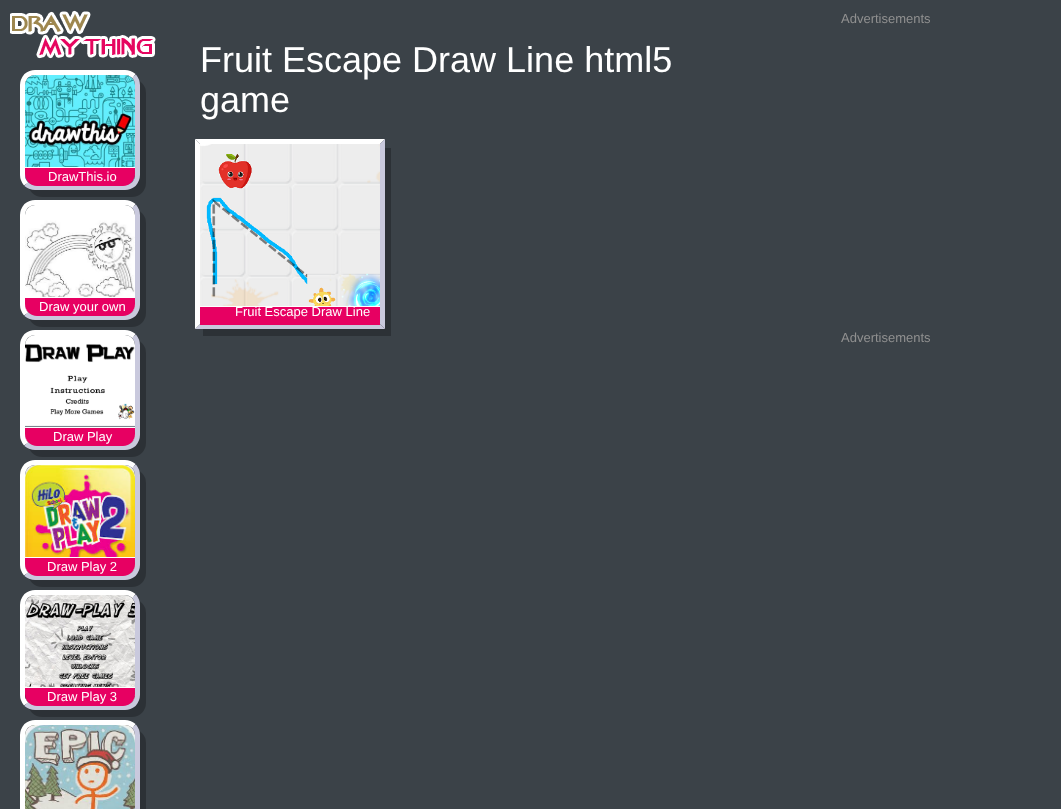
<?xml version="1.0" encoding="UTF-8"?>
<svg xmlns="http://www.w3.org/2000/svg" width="1061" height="809">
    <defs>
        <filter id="blur1" x="-50%" y="-200%" width="200%" height="500%"><feGaussianBlur stdDeviation="0.5"/></filter>
        <clipPath id="clip1"><rect x="210" y="307" width="170" height="16"/></clipPath>
    </defs>
    <rect width="100%" height="100%" fill="#3B4248"/>
    <image x="10" y="10" width="146" height="49" href="img_01.png"/>
    <rect x="28" y="79" width="118" height="118" rx="14" fill="#000000" fill-opacity="0.25" filter="url(#blur1)"/>
    <path d="M 134 76 C 136 78.5 137.5 81.5 137.5 85 V 175 C 137.5 178.5 136 181.5 134 184 C 131.5 186 128.5 187.5 125 187.5 H 35 C 31.5 187.5 28.5 186 26 184" fill="none" stroke="#C9C9DD" stroke-width="5"/>
    <path d="M 26 184 C 24 181.5 22.5 178.5 22.5 175 V 85 C 22.5 81.5 24 78.5 26 76 C 28.5 74 31.5 72.5 35 72.5 H 125 C 128.5 72.5 131.5 74 134 76" fill="none" stroke="#FFFFFF" stroke-width="5"/>
    <image x="25" y="75" width="110" height="110" href="img_02.png"/>
    <path d="M 25 167 H 135 V 174 C 135 180.5 129.5 186 123 186 H 37 C 30.5 186 25 180.5 25 174 Z" fill="#E70062"/>
    <rect x="25" y="167" width="110" height="1" fill="#FFFFFF"/>
    <text x="48" y="181" font-family="Liberation Sans" font-size="13" fill="#FFFFFF">DrawThis.io</text>
    <rect x="28" y="209" width="118" height="118" rx="14" fill="#000000" fill-opacity="0.25" filter="url(#blur1)"/>
    <path d="M 134 206 C 136 208.5 137.5 211.5 137.5 215 V 305 C 137.5 308.5 136 311.5 134 314 C 131.5 316 128.5 317.5 125 317.5 H 35 C 31.5 317.5 28.5 316 26 314" fill="none" stroke="#C9C9DD" stroke-width="5"/>
    <path d="M 26 314 C 24 311.5 22.5 308.5 22.5 305 V 215 C 22.5 211.5 24 208.5 26 206 C 28.5 204 31.5 202.5 35 202.5 H 125 C 128.5 202.5 131.5 204 134 206" fill="none" stroke="#FFFFFF" stroke-width="5"/>
    <image x="25" y="205" width="110" height="110" href="img_03.png"/>
    <path d="M 25 297 H 135 V 304 C 135 310.5 129.5 316 123 316 H 37 C 30.5 316 25 310.5 25 304 Z" fill="#E70062"/>
    <rect x="25" y="297" width="110" height="1" fill="#FFFFFF"/>
    <text x="39" y="311" font-family="Liberation Sans" font-size="13" fill="#FFFFFF">Draw your own</text>
    <rect x="28" y="339" width="118" height="118" rx="14" fill="#000000" fill-opacity="0.25" filter="url(#blur1)"/>
    <path d="M 134 336 C 136 338.5 137.5 341.5 137.5 345 V 435 C 137.5 438.5 136 441.5 134 444 C 131.5 446 128.5 447.5 125 447.5 H 35 C 31.5 447.5 28.5 446 26 444" fill="none" stroke="#C9C9DD" stroke-width="5"/>
    <path d="M 26 444 C 24 441.5 22.5 438.5 22.5 435 V 345 C 22.5 341.5 24 338.5 26 336 C 28.5 334 31.5 332.5 35 332.5 H 125 C 128.5 332.5 131.5 334 134 336" fill="none" stroke="#FFFFFF" stroke-width="5"/>
    <image x="25" y="335" width="110" height="110" href="img_04.png"/>
    <path d="M 25 427 H 135 V 434 C 135 440.5 129.5 446 123 446 H 37 C 30.5 446 25 440.5 25 434 Z" fill="#E70062"/>
    <rect x="25" y="427" width="110" height="1" fill="#FFFFFF"/>
    <text x="53" y="441" font-family="Liberation Sans" font-size="13" fill="#FFFFFF">Draw Play</text>
    <rect x="28" y="469" width="118" height="118" rx="14" fill="#000000" fill-opacity="0.25" filter="url(#blur1)"/>
    <path d="M 134 466 C 136 468.5 137.5 471.5 137.5 475 V 565 C 137.5 568.5 136 571.5 134 574 C 131.5 576 128.5 577.5 125 577.5 H 35 C 31.5 577.5 28.5 576 26 574" fill="none" stroke="#C9C9DD" stroke-width="5"/>
    <path d="M 26 574 C 24 571.5 22.5 568.5 22.5 565 V 475 C 22.5 471.5 24 468.5 26 466 C 28.5 464 31.5 462.5 35 462.5 H 125 C 128.5 462.5 131.5 464 134 466" fill="none" stroke="#FFFFFF" stroke-width="5"/>
    <image x="25" y="465" width="110" height="110" href="img_05.png"/>
    <path d="M 25 557 H 135 V 564 C 135 570.5 129.5 576 123 576 H 37 C 30.5 576 25 570.5 25 564 Z" fill="#E70062"/>
    <rect x="25" y="557" width="110" height="1" fill="#FFFFFF"/>
    <text x="47" y="571" font-family="Liberation Sans" font-size="13" fill="#FFFFFF">Draw Play 2</text>
    <rect x="28" y="599" width="118" height="118" rx="14" fill="#000000" fill-opacity="0.25" filter="url(#blur1)"/>
    <path d="M 134 596 C 136 598.5 137.5 601.5 137.5 605 V 695 C 137.5 698.5 136 701.5 134 704 C 131.5 706 128.5 707.5 125 707.5 H 35 C 31.5 707.5 28.5 706 26 704" fill="none" stroke="#C9C9DD" stroke-width="5"/>
    <path d="M 26 704 C 24 701.5 22.5 698.5 22.5 695 V 605 C 22.5 601.5 24 598.5 26 596 C 28.5 594 31.5 592.5 35 592.5 H 125 C 128.5 592.5 131.5 594 134 596" fill="none" stroke="#FFFFFF" stroke-width="5"/>
    <image x="25" y="595" width="110" height="110" href="img_06.png"/>
    <path d="M 25 687 H 135 V 694 C 135 700.5 129.5 706 123 706 H 37 C 30.5 706 25 700.5 25 694 Z" fill="#E70062"/>
    <rect x="25" y="687" width="110" height="1" fill="#FFFFFF"/>
    <text x="47" y="701" font-family="Liberation Sans" font-size="13" fill="#FFFFFF">Draw Play 3</text>
    <rect x="28" y="729" width="118" height="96" rx="14" fill="#000000" fill-opacity="0.25" filter="url(#blur1)"/>
    <path d="M 134 726 C 136 728.5 137.5 731.5 137.5 735 V 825 C 137.5 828.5 136 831.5 134 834 C 131.5 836 128.5 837.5 125 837.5 H 35 C 31.5 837.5 28.5 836 26 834" fill="none" stroke="#C9C9DD" stroke-width="5"/>
    <path d="M 26 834 C 24 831.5 22.5 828.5 22.5 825 V 735 C 22.5 731.5 24 728.5 26 726 C 28.5 724 31.5 722.5 35 722.5 H 125 C 128.5 722.5 131.5 724 134 726" fill="none" stroke="#FFFFFF" stroke-width="5"/>
    <image x="25" y="725" width="110" height="84" href="img_07.png"/>
    <text font-family="Liberation Sans" font-size="36" fill="#FFFFFF">
        <tspan x="200" y="72">Fruit Escape Draw Line html5</tspan>
        <tspan x="200" y="112">game</tspan>
    </text>
    <path d="M 195 139 H 385 L 380 144 H 200 Z" fill="#FFFFFF"/>
    <rect x="203" y="148" width="188" height="188" fill="#000000" fill-opacity="0.25" filter="url(#blur1)"/>
    <path d="M 385 139 V 329 L 380 324 V 144 Z" fill="#C9C9DD"/>
    <path d="M 385 329 H 195 L 200 324 H 380 Z" fill="#C9C9DD"/>
    <path d="M 195 329 V 139 L 200 144 V 324 Z" fill="#FFFFFF"/>
    <image x="200" y="144" width="180" height="162" href="img_08.png"/>
    <rect x="200" y="307" width="180" height="18" fill="#E70062"/>
    <rect x="200" y="306" width="180" height="1" fill="#FFFFFF"/>
    <g clip-path="url(#clip1)">
        <text x="235" y="316" font-family="Liberation Sans" font-size="13" fill="#FFFFFF">Fruit Escape Draw Line</text>
    </g>
    <text x="841" y="23" font-family="Liberation Sans" font-size="13" fill="#909090">Advertisements</text>
    <text x="841" y="342" font-family="Liberation Sans" font-size="13" fill="#909090">Advertisements</text>
</svg>
